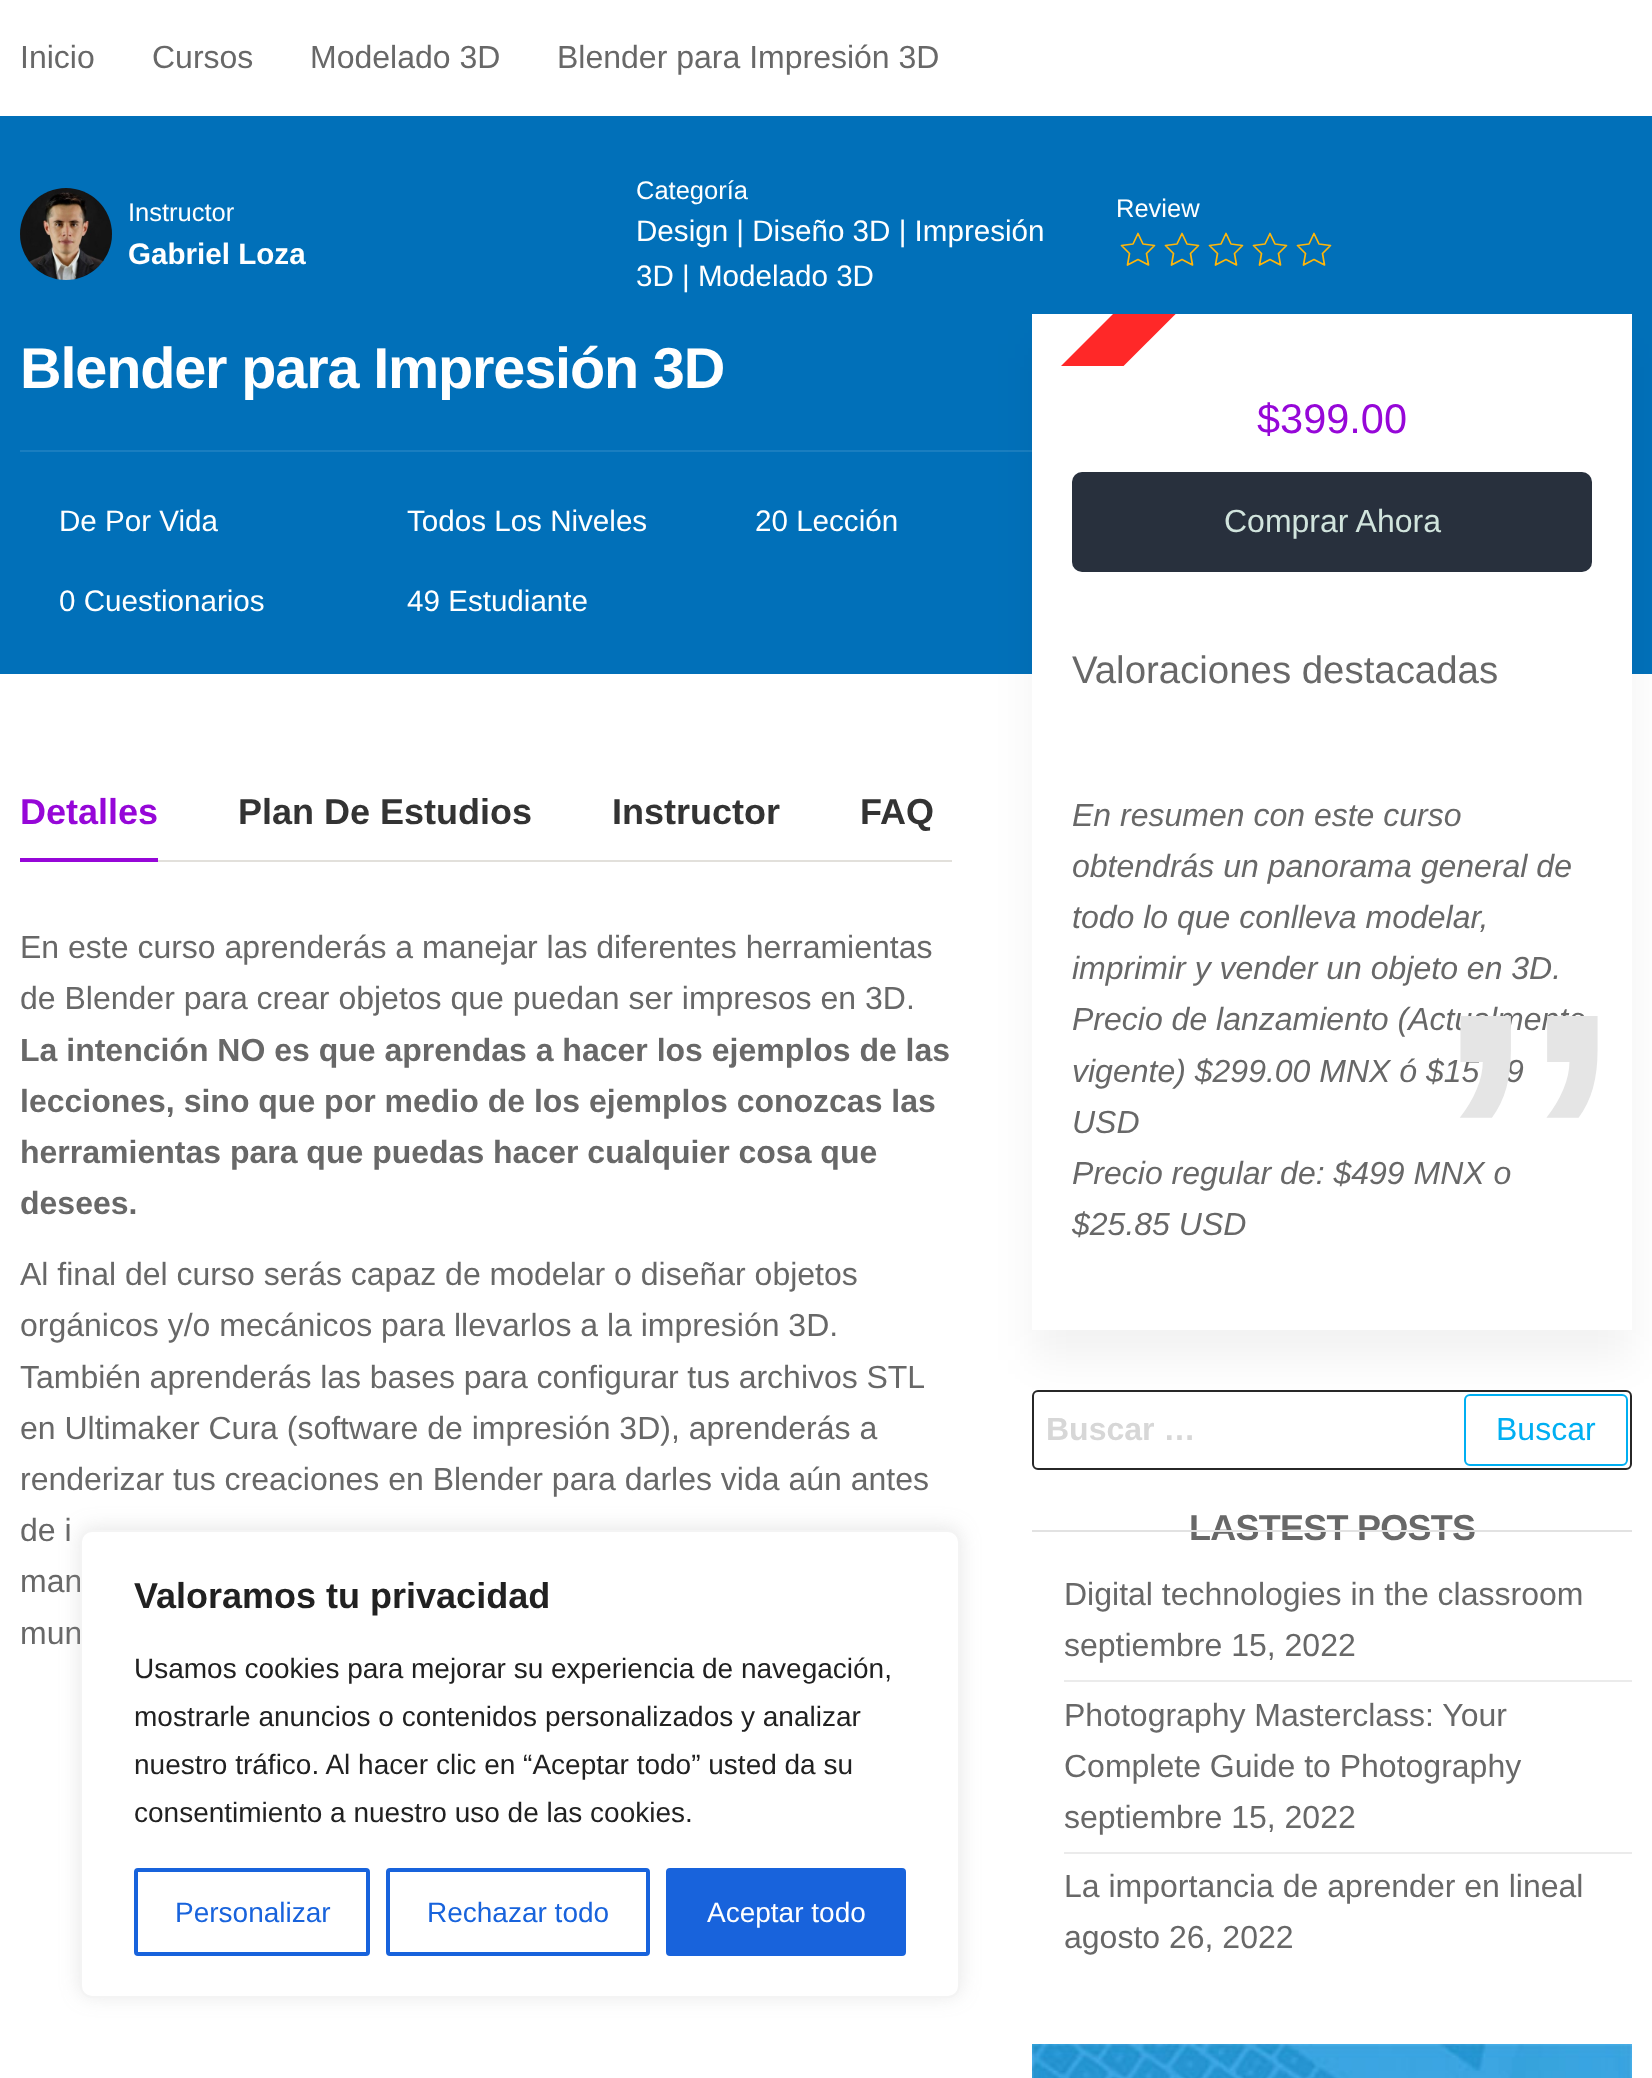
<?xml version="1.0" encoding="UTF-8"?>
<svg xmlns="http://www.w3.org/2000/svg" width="1652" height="2078">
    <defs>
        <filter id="blur1" x="-50%" y="-200%" width="200%" height="500%"><feGaussianBlur stdDeviation="20"/></filter>
        <clipPath id="clip1"><rect x="1032" y="314" width="600" height="52"/></clipPath>
        <filter id="blur2" x="-50%" y="-200%" width="200%" height="500%"><feGaussianBlur stdDeviation="10"/></filter>
    </defs>
    <rect width="100%" height="100%" fill="#FFFFFF"/>
    <text x="20" y="68" font-family="Liberation Sans" font-size="32" fill="#686868">Inicio</text>
    <text x="152" y="68" font-family="Liberation Sans" font-size="32" fill="#686868">Cursos</text>
    <text x="310" y="68" font-family="Liberation Sans" font-size="32" fill="#686868">Modelado 3D</text>
    <text x="557" y="68" font-family="Liberation Sans" font-size="32" fill="#686868">Blender para Impresión 3D</text>
    <rect x="0" y="116" width="1652" height="558" fill="#0170B9"/>
    <image x="20" y="188" width="92" height="92" href="img_01.png"/>
    <text x="128" y="221" font-family="Liberation Sans" font-size="25.5" fill="#FFFFFF">Instructor</text>
    <text x="128" y="264" font-family="Liberation Sans" font-size="29.6" font-weight="700" fill="#FFFFFF">Gabriel Loza</text>
    <text x="636" y="199" font-family="Liberation Sans" font-size="25.5" fill="#FFFFFF">Categoría</text>
    <text font-family="Liberation Sans" font-size="29.6" fill="#FFFFFF">
        <tspan x="636" y="241">Design | Diseño 3D | Impresión</tspan>
        <tspan x="636" y="286">3D | Modelado 3D</tspan>
    </text>
    <text x="1116" y="217" font-family="Liberation Sans" font-size="25.5" fill="#FFFFFF">Review</text>
    <path d="M 1138 233.5 L 1143 244 L 1154.5 245.5 L 1146.5 253.5 L 1148.5 265 L 1138 259.5 L 1127.5 265 L 1129.5 253.5 L 1121.5 245.5 L 1133 244 Z" fill="none" stroke="#FFB60A" stroke-width="1.7" stroke-linecap="round" stroke-linejoin="round"/>
    <path d="M 1182 233.5 L 1187 244 L 1198.5 245.5 L 1190.5 253.5 L 1192.5 265 L 1182 259.5 L 1171.5 265 L 1173.5 253.5 L 1165.5 245.5 L 1177 244 Z" fill="none" stroke="#FFB60A" stroke-width="1.7" stroke-linecap="round" stroke-linejoin="round"/>
    <path d="M 1226 233.5 L 1231 244 L 1242.5 245.5 L 1234.5 253.5 L 1236.5 265 L 1226 259.5 L 1215.5 265 L 1217.5 253.5 L 1209.5 245.5 L 1221 244 Z" fill="none" stroke="#FFB60A" stroke-width="1.7" stroke-linecap="round" stroke-linejoin="round"/>
    <path d="M 1270 233.5 L 1275 244 L 1286.5 245.5 L 1278.5 253.5 L 1280.5 265 L 1270 259.5 L 1259.5 265 L 1261.5 253.5 L 1253.5 245.5 L 1265 244 Z" fill="none" stroke="#FFB60A" stroke-width="1.7" stroke-linecap="round" stroke-linejoin="round"/>
    <path d="M 1314 233.5 L 1319 244 L 1330.5 245.5 L 1322.5 253.5 L 1324.5 265 L 1314 259.5 L 1303.5 265 L 1305.5 253.5 L 1297.5 245.5 L 1309 244 Z" fill="none" stroke="#FFB60A" stroke-width="1.7" stroke-linecap="round" stroke-linejoin="round"/>
    <rect x="20" y="450" width="1012" height="2" fill="#1A7EC0"/>
    <text x="20" y="388" font-family="Liberation Sans" font-size="57.6" font-weight="700" letter-spacing="-1.15" fill="#FFFFFF">Blender para Impresión 3D</text>
    <text x="59" y="531" font-family="Liberation Sans" font-size="29.6" fill="#FFFFFF">De Por Vida</text>
    <text x="407" y="531" font-family="Liberation Sans" font-size="29.6" fill="#FFFFFF">Todos Los Niveles</text>
    <text x="755" y="531" font-family="Liberation Sans" font-size="29.6" fill="#FFFFFF">20 Lección</text>
    <text x="59" y="611" font-family="Liberation Sans" font-size="29.6" fill="#FFFFFF">0 Cuestionarios</text>
    <text x="407" y="611" font-family="Liberation Sans" font-size="29.6" fill="#FFFFFF">49 Estudiante</text>
    <rect x="158" y="860" width="794" height="2" fill="#E2E0DB"/>
    <text x="20" y="824" font-family="Liberation Sans" font-size="36" font-weight="700" fill="#9607D8">Detalles</text>
    <rect x="20" y="858" width="138" height="4" fill="#9607D8"/>
    <text x="238" y="824" font-family="Liberation Sans" font-size="36" font-weight="700" fill="#333333">Plan De Estudios</text>
    <text x="612" y="824" font-family="Liberation Sans" font-size="36" font-weight="700" fill="#333333">Instructor</text>
    <text x="860" y="824" font-family="Liberation Sans" font-size="36" font-weight="700" fill="#333333">FAQ</text>
    <text font-family="Liberation Sans" font-size="32" fill="#686868">
        <tspan x="20" y="958">En este curso aprenderás a manejar las diferentes herramientas</tspan>
        <tspan x="20" y="1009">de Blender para crear objetos que puedan ser impresos en 3D.</tspan>
    </text>
    <text font-family="Liberation Sans" font-size="32" font-weight="700" fill="#686868">
        <tspan x="20" y="1061">La intención NO es que aprendas a hacer los ejemplos de las</tspan>
        <tspan x="20" y="1112">lecciones, sino que por medio de los ejemplos conozcas las</tspan>
        <tspan x="20" y="1163">herramientas para que puedas hacer cualquier cosa que</tspan>
        <tspan x="20" y="1214">desees.</tspan>
    </text>
    <text font-family="Liberation Sans" font-size="32" fill="#686868">
        <tspan x="20" y="1285">Al final del curso serás capaz de modelar o diseñar objetos</tspan>
        <tspan x="20" y="1336">orgánicos y/o mecánicos para llevarlos a la impresión 3D.</tspan>
        <tspan x="20" y="1388" word-spacing="-0.25">También aprenderás las bases para configurar tus archivos STL</tspan>
        <tspan x="20" y="1439">en Ultimaker Cura (software de impresión 3D), aprenderás a</tspan>
        <tspan x="20" y="1490">renderizar tus creaciones en Blender para darles vida aún antes</tspan>
        <tspan x="20" y="1541">de i</tspan>
        <tspan x="20" y="1592">man</tspan>
        <tspan x="20" y="1644">mun</tspan>
    </text>
    <rect x="1032" y="344" width="600" height="1016" fill="#000000" fill-opacity="0.05" filter="url(#blur1)"/>
    <rect x="1032" y="314" width="600" height="1016" fill="#FFFFFF"/>
    <g clip-path="url(#clip1)">
        <path d="M 864 563 L 1289 138 L 1320 170 L 895 594 Z" fill="#FF2828"/>
    </g>
    <text x="1257" y="433" font-family="Liberation Sans" font-size="41.5" fill="#9607D8">$399.00</text>
    <rect x="1072" y="472" width="520" height="100" rx="10" fill="#28303D"/>
    <text x="1224" y="532" font-family="Liberation Sans" font-size="32" fill="#D1E4DD">Comprar Ahora</text>
    <text x="1072" y="683" font-family="Liberation Sans" font-size="38.4" fill="#686868">Valoraciones destacadas</text>
    <text font-family="Liberation Sans" font-size="32" font-style="italic" fill="#686868">
        <tspan x="1072" y="826">En resumen con este curso</tspan>
        <tspan x="1072" y="877">obtendrás un panorama general de</tspan>
        <tspan x="1072" y="928">todo lo que conlleva modelar,</tspan>
        <tspan x="1072" y="979">imprimir y vender un objeto en 3D.</tspan>
        <tspan x="1072" y="1030">Precio de lanzamiento (Actualmente</tspan>
        <tspan x="1072" y="1082">vigente) $299.00 MNX ó $15.49</tspan>
        <tspan x="1072" y="1133">USD</tspan>
        <tspan x="1072" y="1184">Precio regular de: $499 MNX o</tspan>
        <tspan x="1072" y="1235">$25.85 USD</tspan>
    </text>
    <text x="1622" y="870" transform="rotate(180 1622 870)" font-family="Liberation Sans" font-size="360" font-weight="700" fill="#E5E5E5">‘‘</text>
    <rect x="1033" y="1391" width="598" height="78" rx="5" fill="none" stroke="#272727" stroke-width="2"/>
    <text x="1046" y="1440" font-family="Liberation Sans" font-size="32" font-weight="700" fill="#D7D7D7">Buscar …</text>
    <rect x="1465" y="1395" width="162" height="70" rx="5" fill="none" stroke="#00AFF2" stroke-width="2"/>
    <text x="1496" y="1440" font-family="Liberation Sans" font-size="32" fill="#00AFF2">Buscar</text>
    <text x="1189" y="1540" font-family="Liberation Sans" font-size="36" font-weight="700" letter-spacing="-0.75" fill="#686868">LASTEST POSTS</text>
    <rect x="1032" y="1530" width="600" height="2" fill="#E2E2E2"/>
    <rect x="1064" y="1680" width="568" height="2" fill="#EBEBEB"/>
    <text font-family="Liberation Sans" font-size="32" fill="#686868">
        <tspan x="1064" y="1605">Digital technologies in the classroom</tspan>
        <tspan x="1064" y="1656">septiembre 15, 2022</tspan>
    </text>
    <rect x="1064" y="1852" width="568" height="2" fill="#EBEBEB"/>
    <text font-family="Liberation Sans" font-size="32" fill="#686868">
        <tspan x="1064" y="1726">Photography Masterclass: Your</tspan>
        <tspan x="1064" y="1777">Complete Guide to Photography</tspan>
        <tspan x="1064" y="1828">septiembre 15, 2022</tspan>
    </text>
    <text font-family="Liberation Sans" font-size="32" fill="#686868">
        <tspan x="1064" y="1897">La importancia de aprender en lineal</tspan>
        <tspan x="1064" y="1948">agosto 26, 2022</tspan>
    </text>
    <image x="1032" y="2044" width="600" height="34" href="img_02.png"/>
    <rect x="80" y="1528" width="880" height="468" rx="12" fill="#ACABAB" fill-opacity="0.3" filter="url(#blur2)"/>
    <rect x="81" y="1531" width="878" height="466" rx="11" fill="#FFFFFF" stroke="#F4F4F4" stroke-width="2"/>
    <text x="134" y="1608" font-family="Liberation Sans" font-size="36" font-weight="700" fill="#212121">Valoramos tu privacidad</text>
    <text font-family="Liberation Sans" font-size="28" fill="#212121">
        <tspan x="134" y="1678">Usamos cookies para mejorar su experiencia de navegación,</tspan>
        <tspan x="134" y="1726">mostrarle anuncios o contenidos personalizados y analizar</tspan>
        <tspan x="134" y="1774">nuestro tráfico. Al hacer clic en “Aceptar todo” usted da su</tspan>
        <tspan x="134" y="1822">consentimiento a nuestro uso de las cookies.</tspan>
    </text>
    <rect x="136" y="1870" width="232" height="84" rx="2" fill="none" stroke="#1863DC" stroke-width="4"/>
    <text x="175" y="1922" font-family="Liberation Sans" font-size="28" fill="#1863DC">Personalizar</text>
    <rect x="388" y="1870" width="260" height="84" rx="2" fill="none" stroke="#1863DC" stroke-width="4"/>
    <text x="427" y="1922" font-family="Liberation Sans" font-size="28" fill="#1863DC">Rechazar todo</text>
    <rect x="668" y="1870" width="236" height="84" rx="2" fill="#1863DC" stroke="#1863DC" stroke-width="4"/>
    <text x="707" y="1922" font-family="Liberation Sans" font-size="28" fill="#FFFFFF">Aceptar todo</text>
</svg>
